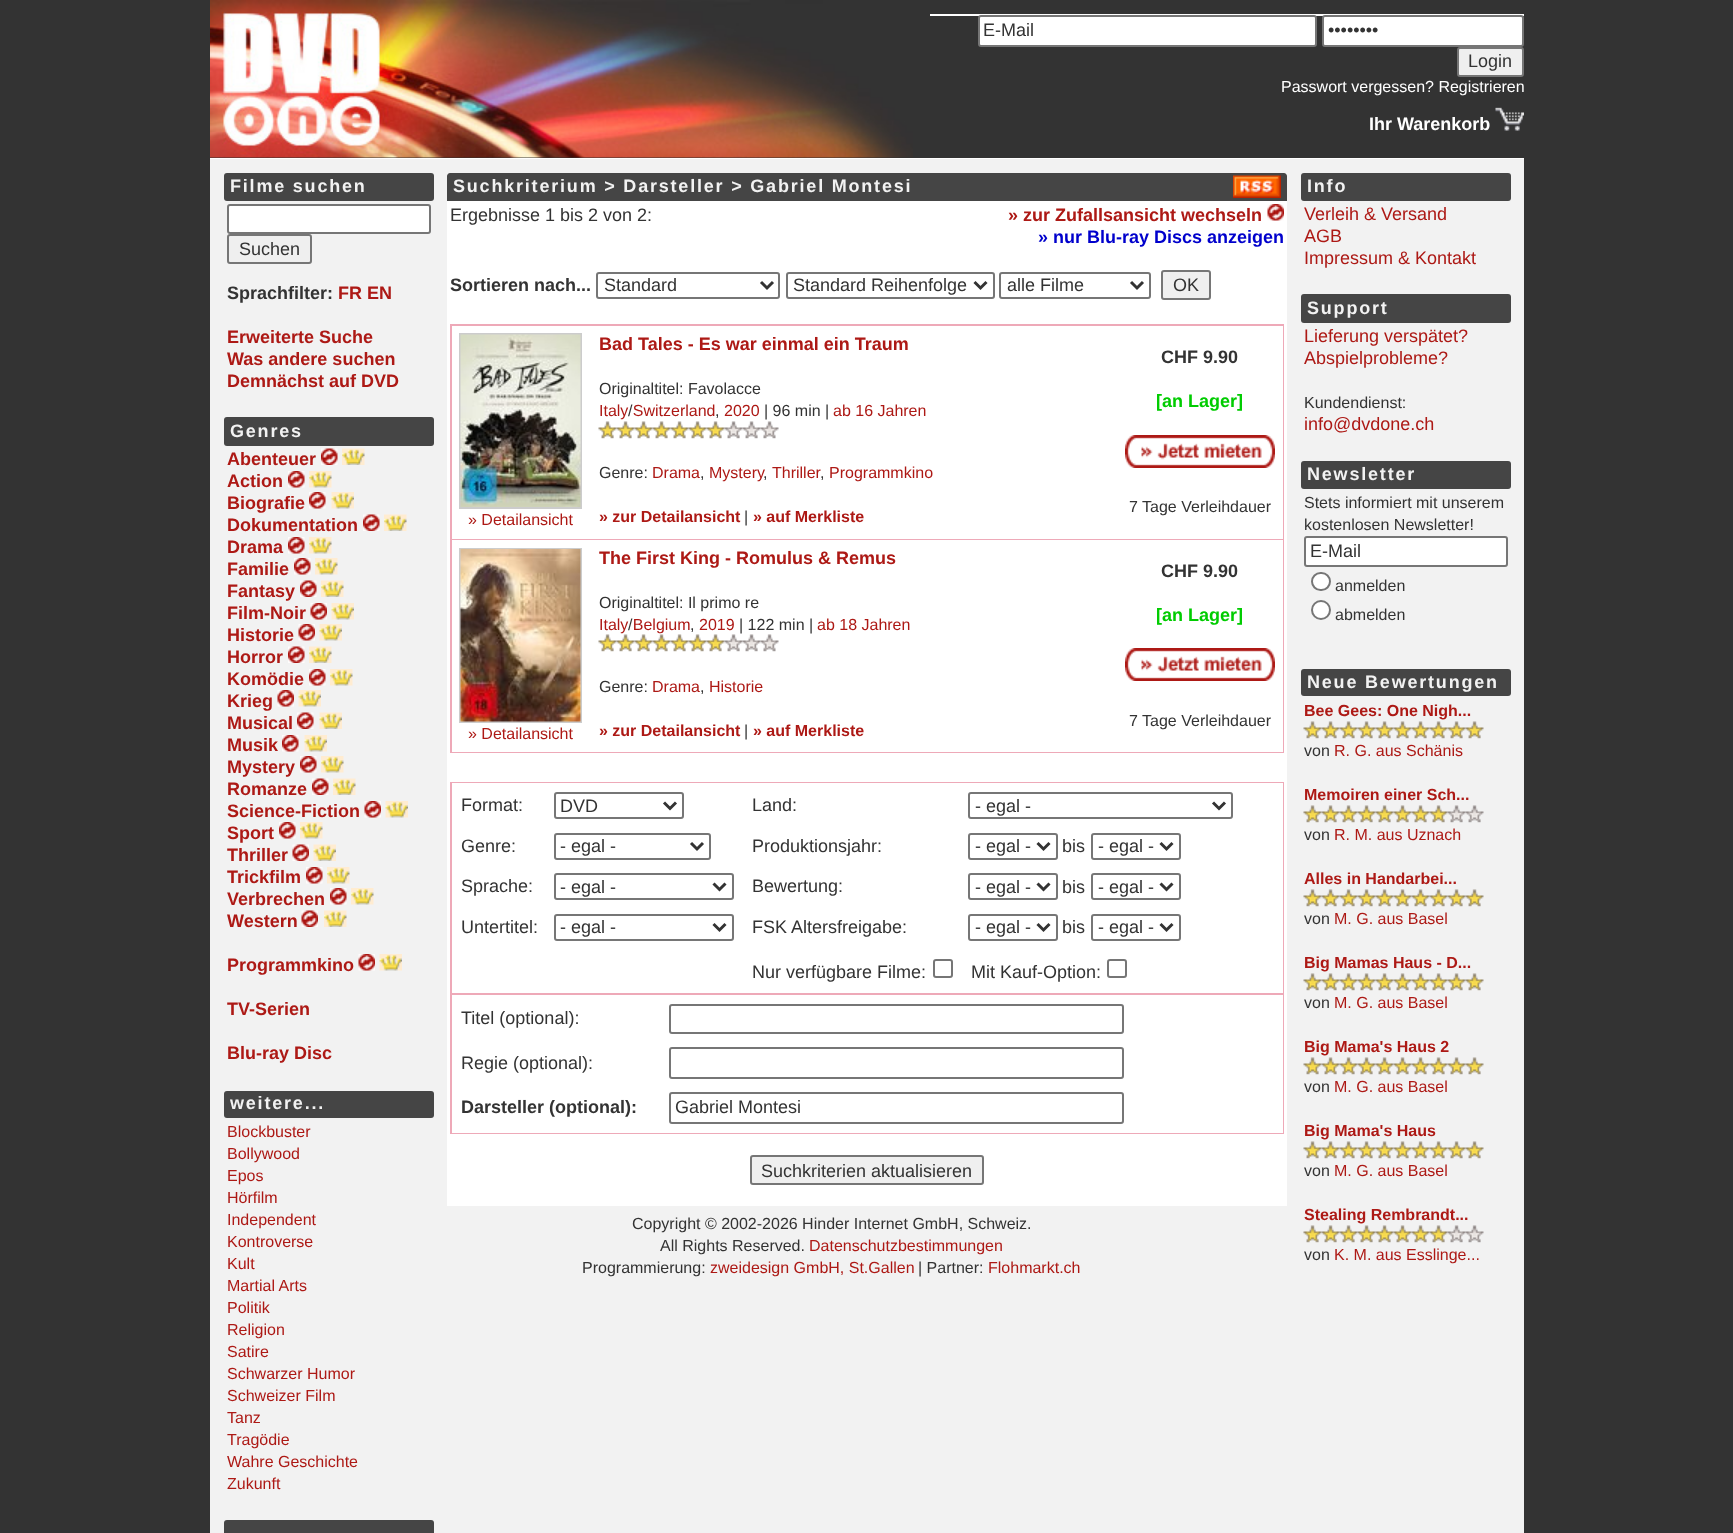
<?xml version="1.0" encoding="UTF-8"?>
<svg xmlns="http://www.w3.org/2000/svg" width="1733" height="1533">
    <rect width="100%" height="100%" fill="#333333"/>
    <image x="210" y="0" width="703" height="158" href="img_01.png"/>
    <rect x="930" y="14" width="594" height="2" fill="#FFFFFF"/>
    <rect x="979" y="16" width="337" height="30" rx="2" fill="#FFFFFF" stroke="#767676" stroke-width="2"/>
    <text x="983" y="36" font-family="Liberation Sans" font-size="18" fill="#333333">E-Mail</text>
    <rect x="1323" y="16" width="200" height="30" rx="2" fill="#FFFFFF" stroke="#767676" stroke-width="2"/>
    <text x="1328" y="36" font-family="Liberation Sans" font-size="18" fill="#333333">••••••••</text>
    <rect x="1458" y="48" width="65" height="28" rx="2" fill="#EFEFEF" stroke="#767676" stroke-width="2"/>
    <text x="1468" y="67" font-family="Liberation Sans" font-size="18" fill="#333333">Login</text>
    <text x="1281" y="92" font-family="Liberation Sans" font-size="16" fill="#FFFFFF">Passwort vergessen? Registrieren</text>
    <text x="1369" y="130" font-family="Liberation Sans" font-size="18" font-weight="700" fill="#FFFFFF">Ihr Warenkorb</text>
    <image x="1495" y="107" width="29" height="24" href="img_02.png"/>
    <rect x="210" y="158" width="1314" height="1" fill="#FFFFFF"/>
    <rect x="210" y="159" width="1314" height="1374" fill="#F2F2F2"/>
    <rect x="224" y="173" width="210" height="28" rx="3" fill="#454545"/>
    <text x="230" y="192" font-family="Liberation Sans" font-size="18" font-weight="700" letter-spacing="1.8" fill="#F2F2F2">Filme suchen</text>
    <rect x="228" y="205" width="202" height="28" rx="2" fill="#FFFFFF" stroke="#767676" stroke-width="2"/>
    <rect x="228" y="235" width="83" height="28" rx="2" fill="#EFEFEF" stroke="#767676" stroke-width="2"/>
    <text x="239" y="255" font-family="Liberation Sans" font-size="18" fill="#333333">Suchen</text>
    <text x="227" y="299" font-family="Liberation Sans" font-size="18" font-weight="700" fill="#333333">Sprachfilter:</text>
    <text x="338" y="299" font-family="Liberation Sans" font-size="18" font-weight="700" fill="#AD1915">FR EN</text>
    <text font-family="Liberation Sans" font-size="18" font-weight="700" fill="#AD1915">
        <tspan x="227" y="343">Erweiterte Suche</tspan>
        <tspan x="227" y="365">Was andere suchen</tspan>
        <tspan x="227" y="387">Demnächst auf DVD</tspan>
    </text>
    <rect x="224" y="417" width="210" height="29" rx="3" fill="#454545"/>
    <text x="230" y="437" font-family="Liberation Sans" font-size="18" font-weight="700" letter-spacing="1.8" fill="#F2F2F2">Genres</text>
    <text x="227" y="465" font-family="Liberation Sans" font-size="18" font-weight="700" fill="#AD1915">Abenteuer</text>
    <image x="321" y="448" width="17" height="17" href="img_03.png"/>
    <image x="342" y="448" width="23" height="17" href="img_04.png"/>
    <text x="227" y="487" font-family="Liberation Sans" font-size="18" font-weight="700" fill="#AD1915">Action</text>
    <image x="288" y="471" width="17" height="17" href="img_05.png"/>
    <image x="309" y="471" width="23" height="17" href="img_06.png"/>
    <text x="227" y="509" font-family="Liberation Sans" font-size="18" font-weight="700" fill="#AD1915">Biografie</text>
    <image x="309" y="492" width="17" height="17" href="img_05.png"/>
    <image x="331" y="492" width="23" height="17" href="img_07.png"/>
    <text x="227" y="531" font-family="Liberation Sans" font-size="18" font-weight="700" fill="#AD1915">Dokumentation</text>
    <image x="363" y="514" width="17" height="17" href="img_03.png"/>
    <image x="384" y="514" width="23" height="17" href="img_04.png"/>
    <text x="227" y="553" font-family="Liberation Sans" font-size="18" font-weight="700" fill="#AD1915">Drama</text>
    <image x="288" y="537" width="17" height="17" href="img_05.png"/>
    <image x="309" y="537" width="23" height="17" href="img_06.png"/>
    <text x="227" y="575" font-family="Liberation Sans" font-size="18" font-weight="700" fill="#AD1915">Familie</text>
    <image x="294" y="558" width="17" height="17" href="img_05.png"/>
    <image x="315" y="558" width="23" height="17" href="img_06.png"/>
    <text x="227" y="597" font-family="Liberation Sans" font-size="18" font-weight="700" fill="#AD1915">Fantasy</text>
    <image x="300" y="580" width="17" height="17" href="img_03.png"/>
    <image x="321" y="580" width="23" height="17" href="img_04.png"/>
    <text x="227" y="619" font-family="Liberation Sans" font-size="18" font-weight="700" fill="#AD1915">Film-Noir</text>
    <image x="310" y="603" width="17" height="17" href="img_08.png"/>
    <image x="331" y="603" width="23" height="17" href="img_07.png"/>
    <text x="227" y="641" font-family="Liberation Sans" font-size="18" font-weight="700" fill="#AD1915">Historie</text>
    <image x="298" y="624" width="17" height="17" href="img_09.png"/>
    <image x="319" y="624" width="23" height="17" href="img_07.png"/>
    <text x="227" y="663" font-family="Liberation Sans" font-size="18" font-weight="700" fill="#AD1915">Horror</text>
    <image x="288" y="646" width="17" height="17" href="img_03.png"/>
    <image x="309" y="646" width="23" height="17" href="img_04.png"/>
    <text x="227" y="685" font-family="Liberation Sans" font-size="18" font-weight="700" fill="#AD1915">Komödie</text>
    <image x="309" y="669" width="17" height="17" href="img_05.png"/>
    <image x="330" y="669" width="23" height="17" href="img_06.png"/>
    <text x="227" y="707" font-family="Liberation Sans" font-size="18" font-weight="700" fill="#AD1915">Krieg</text>
    <image x="277" y="690" width="17" height="17" href="img_08.png"/>
    <image x="298" y="690" width="23" height="17" href="img_10.png"/>
    <text x="227" y="729" font-family="Liberation Sans" font-size="18" font-weight="700" fill="#AD1915">Musical</text>
    <image x="297" y="712" width="17" height="17" href="img_03.png"/>
    <image x="319" y="712" width="23" height="17" href="img_11.png"/>
    <text x="227" y="751" font-family="Liberation Sans" font-size="18" font-weight="700" fill="#AD1915">Musik</text>
    <image x="282" y="735" width="17" height="17" href="img_05.png"/>
    <image x="304" y="735" width="23" height="17" href="img_07.png"/>
    <text x="227" y="773" font-family="Liberation Sans" font-size="18" font-weight="700" fill="#AD1915">Mystery</text>
    <image x="300" y="756" width="17" height="17" href="img_05.png"/>
    <image x="321" y="756" width="23" height="17" href="img_06.png"/>
    <text x="227" y="795" font-family="Liberation Sans" font-size="18" font-weight="700" fill="#AD1915">Romanze</text>
    <image x="312" y="778" width="17" height="17" href="img_03.png"/>
    <image x="333" y="778" width="23" height="17" href="img_04.png"/>
    <text x="227" y="817" font-family="Liberation Sans" font-size="18" font-weight="700" fill="#AD1915">Science-Fiction</text>
    <image x="364" y="801" width="17" height="17" href="img_09.png"/>
    <image x="385" y="801" width="23" height="17" href="img_10.png"/>
    <text x="227" y="839" font-family="Liberation Sans" font-size="18" font-weight="700" fill="#AD1915">Sport</text>
    <image x="279" y="822" width="17" height="17" href="img_05.png"/>
    <image x="300" y="822" width="23" height="17" href="img_06.png"/>
    <text x="227" y="861" font-family="Liberation Sans" font-size="18" font-weight="700" fill="#AD1915">Thriller</text>
    <image x="292" y="844" width="17" height="17" href="img_12.png"/>
    <image x="313" y="844" width="23" height="17" href="img_11.png"/>
    <text x="227" y="883" font-family="Liberation Sans" font-size="18" font-weight="700" fill="#AD1915">Trickfilm</text>
    <image x="306" y="867" width="17" height="17" href="img_05.png"/>
    <image x="327" y="867" width="23" height="17" href="img_06.png"/>
    <text x="227" y="905" font-family="Liberation Sans" font-size="18" font-weight="700" fill="#AD1915">Verbrechen</text>
    <image x="330" y="888" width="17" height="17" href="img_05.png"/>
    <image x="351" y="888" width="23" height="17" href="img_06.png"/>
    <text x="227" y="927" font-family="Liberation Sans" font-size="18" font-weight="700" fill="#AD1915">Western</text>
    <image x="301" y="910" width="17" height="17" href="img_13.png"/>
    <image x="324" y="910" width="23" height="17" href="img_04.png"/>
    <text x="227" y="971" font-family="Liberation Sans" font-size="18" font-weight="700" fill="#AD1915">Programmkino</text>
    <image x="358" y="954" width="17" height="17" href="img_09.png"/>
    <image x="379" y="954" width="23" height="17" href="img_10.png"/>
    <text x="227" y="1015" font-family="Liberation Sans" font-size="18" font-weight="700" fill="#AD1915">TV-Serien</text>
    <text x="227" y="1059" font-family="Liberation Sans" font-size="18" font-weight="700" fill="#AD1915">Blu-ray Disc</text>
    <rect x="224" y="1091" width="210" height="27" rx="3" fill="#454545"/>
    <text x="230" y="1109" font-family="Liberation Sans" font-size="18" font-weight="700" letter-spacing="1.8" fill="#F2F2F2">weitere...</text>
    <text font-family="Liberation Sans" font-size="16" fill="#AD1915">
        <tspan x="227" y="1137">Blockbuster</tspan>
        <tspan x="227" y="1159">Bollywood</tspan>
        <tspan x="227" y="1181">Epos</tspan>
        <tspan x="227" y="1203">Hörfilm</tspan>
        <tspan x="227" y="1225">Independent</tspan>
        <tspan x="227" y="1247">Kontroverse</tspan>
        <tspan x="227" y="1269">Kult</tspan>
        <tspan x="227" y="1291">Martial Arts</tspan>
        <tspan x="227" y="1313">Politik</tspan>
        <tspan x="227" y="1335">Religion</tspan>
        <tspan x="227" y="1357">Satire</tspan>
        <tspan x="227" y="1379">Schwarzer Humor</tspan>
        <tspan x="227" y="1401">Schweizer Film</tspan>
        <tspan x="227" y="1423">Tanz</tspan>
        <tspan x="227" y="1445">Tragödie</tspan>
        <tspan x="227" y="1467">Wahre Geschichte</tspan>
        <tspan x="227" y="1489">Zukunft</tspan>
    </text>
    <rect x="224" y="1520" width="210" height="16" rx="3" fill="#454545"/>
    <path d="M 450 173 H 1215 V 201 H 447 V 176 C 447 174.5 448.5 173 450 173 Z" fill="#454545"/>
    <text x="453" y="192" font-family="Liberation Sans" font-size="18" font-weight="700" letter-spacing="1.8" fill="#F2F2F2">Suchkriterium &gt; Darsteller &gt; Gabriel Montesi</text>
    <path d="M 1215 173 H 1284 C 1285.5 173 1287 174.5 1287 176 V 201 H 1215 Z" fill="#454545"/>
    <image x="1233" y="175" width="48" height="23" href="img_14.png"/>
    <rect x="447" y="201" width="840" height="1005" fill="#FFFFFF"/>
    <text x="450" y="221" font-family="Liberation Sans" font-size="18" fill="#333333">Ergebnisse 1 bis 2 von 2:</text>
    <text x="1008" y="221" font-family="Liberation Sans" font-size="18" font-weight="700" fill="#AD1915">» zur Zufallsansicht wechseln</text>
    <image x="1267" y="204" width="17" height="17" href="img_15.png"/>
    <text x="1038" y="243" font-family="Liberation Sans" font-size="18" font-weight="700" fill="#0000CC">» nur Blu-ray Discs anzeigen</text>
    <text x="450" y="291" font-family="Liberation Sans" font-size="18" font-weight="700" fill="#333333">Sortieren nach...</text>
    <rect x="597" y="273" width="182" height="25" rx="2" fill="none" stroke="#767676" stroke-width="2"/>
    <path d="M 761 282 L 767 288 L 773 282" fill="none" stroke="#333333" stroke-width="3"/>
    <text x="604" y="291" font-family="Liberation Sans" font-size="18" fill="#333333">Standard</text>
    <rect x="787" y="273" width="207" height="25" rx="2" fill="none" stroke="#767676" stroke-width="2"/>
    <path d="M 974.5 282 L 980.5 288 L 986.5 282" fill="none" stroke="#333333" stroke-width="3"/>
    <text x="793" y="291" font-family="Liberation Sans" font-size="18" fill="#333333">Standard Reihenfolge</text>
    <rect x="1000" y="273" width="150" height="25" rx="2" fill="none" stroke="#767676" stroke-width="2"/>
    <path d="M 1131 282 L 1137 288 L 1143 282" fill="none" stroke="#333333" stroke-width="3"/>
    <text x="1007" y="291" font-family="Liberation Sans" font-size="18" fill="#333333">alle Filme</text>
    <rect x="1162" y="271" width="48" height="28" rx="2" fill="#EFEFEF" stroke="#767676" stroke-width="2"/>
    <text x="1173" y="291" font-family="Liberation Sans" font-size="18" fill="#333333">OK</text>
    <rect x="450" y="324" width="834" height="429" fill="#EEA9B8"/>
    <rect x="452" y="326" width="831" height="213" fill="#FFFFFF"/>
    <text x="599" y="350" font-family="Liberation Sans" font-size="18" font-weight="700" fill="#AD1915">Bad Tales - Es war einmal ein Traum</text>
    <text x="599" y="394" font-family="Liberation Sans" font-size="16" fill="#333333">Originaltitel: Favolacce</text>
    <text x="599" y="416" font-family="Liberation Sans" font-size="16" fill="#AD1915">Italy Switzerland</text>
    <text x="628" y="416" font-family="Liberation Sans" font-size="16" fill="#333333">/</text>
    <text x="715" y="416" font-family="Liberation Sans" font-size="16" fill="#333333">,</text>
    <text x="724" y="416" font-family="Liberation Sans" font-size="16" fill="#AD1915">2020</text>
    <text x="764" y="416" font-family="Liberation Sans" font-size="16" fill="#333333">| 96 min |</text>
    <text x="833" y="416" font-family="Liberation Sans" font-size="16" fill="#AD1915">ab 16 Jahren</text>
    <image x="598" y="421" width="19" height="18" href="img_16.png"/>
    <image x="616" y="421" width="19" height="18" href="img_17.png"/>
    <image x="634" y="421" width="19" height="18" href="img_17.png"/>
    <image x="652" y="421" width="19" height="18" href="img_17.png"/>
    <image x="670" y="421" width="19" height="18" href="img_17.png"/>
    <image x="688" y="421" width="19" height="18" href="img_17.png"/>
    <image x="706" y="421" width="19" height="18" href="img_17.png"/>
    <image x="724" y="421" width="19" height="18" href="img_18.png"/>
    <image x="742" y="421" width="19" height="18" href="img_19.png"/>
    <image x="760" y="421" width="19" height="18" href="img_20.png"/>
    <text x="599" y="478" font-family="Liberation Sans" font-size="16" fill="#333333">Genre:</text>
    <text x="652" y="478" font-family="Liberation Sans" font-size="16" fill="#AD1915">Drama</text>
    <text x="700" y="478" font-family="Liberation Sans" font-size="16" fill="#333333">,</text>
    <text x="709" y="478" font-family="Liberation Sans" font-size="16" fill="#AD1915">Mystery</text>
    <text x="763" y="478" font-family="Liberation Sans" font-size="16" fill="#333333">,</text>
    <text x="772" y="478" font-family="Liberation Sans" font-size="16" fill="#AD1915">Thriller</text>
    <text x="820" y="478" font-family="Liberation Sans" font-size="16" fill="#333333">,</text>
    <text x="829" y="478" font-family="Liberation Sans" font-size="16" fill="#AD1915">Programmkino</text>
    <text x="599" y="522" font-family="Liberation Sans" font-size="16" font-weight="700" fill="#AD1915">» zur Detailansicht</text>
    <text x="744" y="522" font-family="Liberation Sans" font-size="16" fill="#333333">|</text>
    <text x="753" y="522" font-family="Liberation Sans" font-size="16" font-weight="700" fill="#AD1915">» auf Merkliste</text>
    <text x="1161" y="363" font-family="Liberation Sans" font-size="18" font-weight="700" fill="#333333">CHF 9.90</text>
    <text x="1156" y="407" font-family="Liberation Sans" font-size="18" font-weight="700" fill="#00CC00">[an Lager]</text>
    <image x="1125" y="435" width="150" height="33" href="img_21.png"/>
    <text x="1129" y="512" font-family="Liberation Sans" font-size="16" fill="#333333">7 Tage Verleihdauer</text>
    <rect x="460" y="334" width="121" height="174" fill="none" stroke="#CCCCCC" stroke-width="2"/>
    <image x="460" y="334" width="121" height="173" href="img_22.png"/>
    <text x="468" y="525" font-family="Liberation Sans" font-size="16" fill="#AD1915">» Detailansicht</text>
    <rect x="452" y="540" width="831" height="212" fill="#FFFFFF"/>
    <text x="599" y="564" font-family="Liberation Sans" font-size="18" font-weight="700" fill="#AD1915">The First King - Romulus &amp; Remus</text>
    <text x="599" y="608" font-family="Liberation Sans" font-size="16" fill="#333333">Originaltitel: Il primo re</text>
    <text x="599" y="630" font-family="Liberation Sans" font-size="16" fill="#AD1915">Italy Belgium</text>
    <text x="628" y="630" font-family="Liberation Sans" font-size="16" fill="#333333">/</text>
    <text x="690" y="630" font-family="Liberation Sans" font-size="16" fill="#333333">,</text>
    <text x="699" y="630" font-family="Liberation Sans" font-size="16" fill="#AD1915">2019</text>
    <text x="739" y="630" font-family="Liberation Sans" font-size="16" fill="#333333">| 122 min |</text>
    <text x="817" y="630" font-family="Liberation Sans" font-size="16" fill="#AD1915">ab 18 Jahren</text>
    <image x="598" y="634" width="19" height="18" href="img_16.png"/>
    <image x="616" y="634" width="19" height="18" href="img_17.png"/>
    <image x="634" y="634" width="19" height="18" href="img_17.png"/>
    <image x="652" y="634" width="19" height="18" href="img_17.png"/>
    <image x="670" y="634" width="19" height="18" href="img_17.png"/>
    <image x="688" y="634" width="19" height="18" href="img_17.png"/>
    <image x="706" y="634" width="19" height="18" href="img_17.png"/>
    <image x="724" y="634" width="19" height="18" href="img_18.png"/>
    <image x="742" y="634" width="19" height="18" href="img_19.png"/>
    <image x="760" y="634" width="19" height="18" href="img_20.png"/>
    <text x="599" y="692" font-family="Liberation Sans" font-size="16" fill="#333333">Genre:</text>
    <text x="652" y="692" font-family="Liberation Sans" font-size="16" fill="#AD1915">Drama</text>
    <text x="700" y="692" font-family="Liberation Sans" font-size="16" fill="#333333">,</text>
    <text x="709" y="692" font-family="Liberation Sans" font-size="16" fill="#AD1915">Historie</text>
    <text x="599" y="736" font-family="Liberation Sans" font-size="16" font-weight="700" fill="#AD1915">» zur Detailansicht</text>
    <text x="744" y="736" font-family="Liberation Sans" font-size="16" fill="#333333">|</text>
    <text x="753" y="736" font-family="Liberation Sans" font-size="16" font-weight="700" fill="#AD1915">» auf Merkliste</text>
    <text x="1161" y="577" font-family="Liberation Sans" font-size="18" font-weight="700" fill="#333333">CHF 9.90</text>
    <text x="1156" y="621" font-family="Liberation Sans" font-size="18" font-weight="700" fill="#00CC00">[an Lager]</text>
    <image x="1125" y="648" width="150" height="33" href="img_21.png"/>
    <text x="1129" y="726" font-family="Liberation Sans" font-size="16" fill="#333333">7 Tage Verleihdauer</text>
    <rect x="460" y="549" width="121" height="173" fill="none" stroke="#CCCCCC" stroke-width="2"/>
    <image x="460" y="549" width="121" height="173" href="img_23.png"/>
    <text x="468" y="739" font-family="Liberation Sans" font-size="16" fill="#AD1915">» Detailansicht</text>
    <rect x="450" y="782" width="834" height="352" fill="#EEA9B8"/>
    <rect x="452" y="783" width="831" height="210" fill="#FFFFFF"/>
    <text x="461" y="811" font-family="Liberation Sans" font-size="18" fill="#333333">Format:</text>
    <rect x="555" y="793" width="128" height="25" rx="2" fill="none" stroke="#767676" stroke-width="2"/>
    <path d="M 664 802.5 L 670 808.5 L 676 802.5" fill="none" stroke="#333333" stroke-width="3"/>
    <text x="560" y="812" font-family="Liberation Sans" font-size="18" fill="#333333">DVD</text>
    <text x="461" y="852" font-family="Liberation Sans" font-size="18" fill="#333333">Genre:</text>
    <rect x="555" y="834" width="155" height="25" rx="2" fill="none" stroke="#767676" stroke-width="2"/>
    <path d="M 691 843 L 697 849 L 703 843" fill="none" stroke="#333333" stroke-width="3"/>
    <text x="560" y="852" font-family="Liberation Sans" font-size="18" fill="#333333">- egal -</text>
    <text x="461" y="892" font-family="Liberation Sans" font-size="18" fill="#333333">Sprache:</text>
    <rect x="555" y="874" width="178" height="25" rx="2" fill="none" stroke="#767676" stroke-width="2"/>
    <path d="M 713.5 883.5 L 719.5 889.5 L 725.5 883.5" fill="none" stroke="#333333" stroke-width="3"/>
    <text x="560" y="893" font-family="Liberation Sans" font-size="18" fill="#333333">- egal -</text>
    <text x="461" y="933" font-family="Liberation Sans" font-size="18" fill="#333333">Untertitel:</text>
    <rect x="555" y="915" width="178" height="25" rx="2" fill="none" stroke="#767676" stroke-width="2"/>
    <path d="M 713.5 924 L 719.5 930 L 725.5 924" fill="none" stroke="#333333" stroke-width="3"/>
    <text x="560" y="933" font-family="Liberation Sans" font-size="18" fill="#333333">- egal -</text>
    <text x="752" y="811" font-family="Liberation Sans" font-size="18" fill="#333333">Land:</text>
    <rect x="969" y="793" width="263" height="25" rx="2" fill="none" stroke="#767676" stroke-width="2"/>
    <path d="M 1213 802.5 L 1219 808.5 L 1225 802.5" fill="none" stroke="#333333" stroke-width="3"/>
    <text x="975" y="812" font-family="Liberation Sans" font-size="18" fill="#333333">- egal -</text>
    <text x="752" y="852" font-family="Liberation Sans" font-size="18" fill="#333333">Produktionsjahr:</text>
    <rect x="969" y="834" width="88" height="25" rx="2" fill="none" stroke="#767676" stroke-width="2"/>
    <path d="M 1037.5 843 L 1043.5 849 L 1049.5 843" fill="none" stroke="#333333" stroke-width="3"/>
    <text x="975" y="852" font-family="Liberation Sans" font-size="18" fill="#333333">- egal -</text>
    <text x="1062" y="852" font-family="Liberation Sans" font-size="18" fill="#333333">bis</text>
    <rect x="1092" y="834" width="88" height="25" rx="2" fill="none" stroke="#767676" stroke-width="2"/>
    <path d="M 1160.5 843 L 1166.5 849 L 1172.5 843" fill="none" stroke="#333333" stroke-width="3"/>
    <text x="1098" y="852" font-family="Liberation Sans" font-size="18" fill="#333333">- egal -</text>
    <text x="752" y="892" font-family="Liberation Sans" font-size="18" fill="#333333">Bewertung:</text>
    <rect x="969" y="874" width="88" height="25" rx="2" fill="none" stroke="#767676" stroke-width="2"/>
    <path d="M 1037.5 883.5 L 1043.5 889.5 L 1049.5 883.5" fill="none" stroke="#333333" stroke-width="3"/>
    <text x="975" y="893" font-family="Liberation Sans" font-size="18" fill="#333333">- egal -</text>
    <text x="1062" y="893" font-family="Liberation Sans" font-size="18" fill="#333333">bis</text>
    <rect x="1092" y="874" width="88" height="25" rx="2" fill="none" stroke="#767676" stroke-width="2"/>
    <path d="M 1160.5 883.5 L 1166.5 889.5 L 1172.5 883.5" fill="none" stroke="#333333" stroke-width="3"/>
    <text x="1098" y="893" font-family="Liberation Sans" font-size="18" fill="#333333">- egal -</text>
    <text x="752" y="933" font-family="Liberation Sans" font-size="18" fill="#333333">FSK Altersfreigabe:</text>
    <rect x="969" y="915" width="88" height="25" rx="2" fill="none" stroke="#767676" stroke-width="2"/>
    <path d="M 1037.5 924 L 1043.5 930 L 1049.5 924" fill="none" stroke="#333333" stroke-width="3"/>
    <text x="975" y="933" font-family="Liberation Sans" font-size="18" fill="#333333">- egal -</text>
    <text x="1062" y="933" font-family="Liberation Sans" font-size="18" fill="#333333">bis</text>
    <rect x="1092" y="915" width="88" height="25" rx="2" fill="none" stroke="#767676" stroke-width="2"/>
    <path d="M 1160.5 924 L 1166.5 930 L 1172.5 924" fill="none" stroke="#333333" stroke-width="3"/>
    <text x="1098" y="933" font-family="Liberation Sans" font-size="18" fill="#333333">- egal -</text>
    <text x="752" y="978" font-family="Liberation Sans" font-size="18" fill="#333333">Nur verfügbare Filme:</text>
    <rect x="934" y="960" width="18" height="17" rx="2" fill="none" stroke="#767676" stroke-width="2"/>
    <text x="971" y="978" font-family="Liberation Sans" font-size="18" fill="#333333">Mit Kauf-Option:</text>
    <rect x="1108" y="960" width="18" height="17" rx="2" fill="none" stroke="#767676" stroke-width="2"/>
    <rect x="452" y="995" width="831" height="138" fill="#FFFFFF"/>
    <text x="461" y="1024" font-family="Liberation Sans" font-size="18" fill="#333333">Titel (optional):</text>
    <rect x="670" y="1005" width="453" height="28" rx="2" fill="none" stroke="#767676" stroke-width="2"/>
    <text x="461" y="1069" font-family="Liberation Sans" font-size="18" fill="#333333">Regie (optional):</text>
    <rect x="670" y="1048" width="453" height="30" rx="2" fill="none" stroke="#767676" stroke-width="2"/>
    <text x="461" y="1113" font-family="Liberation Sans" font-size="18" font-weight="700" fill="#333333">Darsteller (optional):</text>
    <rect x="670" y="1093" width="453" height="30" rx="2" fill="none" stroke="#767676" stroke-width="2"/>
    <text x="675" y="1113" font-family="Liberation Sans" font-size="18" fill="#333333">Gabriel Montesi</text>
    <rect x="751" y="1156" width="232" height="28" rx="2" fill="#EFEFEF" stroke="#767676" stroke-width="2"/>
    <text x="761" y="1177" font-family="Liberation Sans" font-size="18" fill="#333333">Suchkriterien aktualisieren</text>
    <text x="632" y="1229" font-family="Liberation Sans" font-size="16" fill="#333333">Copyright © 2002-2026 Hinder Internet GmbH, Schweiz.</text>
    <text x="660" y="1251" font-family="Liberation Sans" font-size="16" fill="#333333">All Rights Reserved.</text>
    <text x="809" y="1251" font-family="Liberation Sans" font-size="16" fill="#AD1915">Datenschutzbestimmungen</text>
    <text x="582" y="1273" font-family="Liberation Sans" font-size="16" fill="#333333">Programmierung:</text>
    <text x="710" y="1273" font-family="Liberation Sans" font-size="16" fill="#AD1915">zweidesign GmbH, St.Gallen</text>
    <text x="918" y="1273" font-family="Liberation Sans" font-size="16" fill="#333333">| Partner:</text>
    <text x="988" y="1273" font-family="Liberation Sans" font-size="16" fill="#AD1915">Flohmarkt.ch</text>
    <rect x="1301" y="173" width="210" height="28" rx="3" fill="#454545"/>
    <text x="1307" y="192" font-family="Liberation Sans" font-size="18" font-weight="700" letter-spacing="1.8" fill="#F2F2F2">Info</text>
    <text font-family="Liberation Sans" font-size="18" fill="#AD1915">
        <tspan x="1304" y="220">Verleih &amp; Versand</tspan>
        <tspan x="1304" y="242">AGB</tspan>
        <tspan x="1304" y="264">Impressum &amp; Kontakt</tspan>
    </text>
    <rect x="1301" y="294" width="210" height="29" rx="3" fill="#454545"/>
    <text x="1307" y="314" font-family="Liberation Sans" font-size="18" font-weight="700" letter-spacing="1.8" fill="#F2F2F2">Support</text>
    <text font-family="Liberation Sans" font-size="18" fill="#AD1915">
        <tspan x="1304" y="342">Lieferung verspätet?</tspan>
        <tspan x="1304" y="364">Abspielprobleme?</tspan>
    </text>
    <text x="1304" y="408" font-family="Liberation Sans" font-size="16" fill="#333333">Kundendienst:</text>
    <text x="1304" y="430" font-family="Liberation Sans" font-size="18" fill="#AD1915">info@dvdone.ch</text>
    <rect x="1301" y="461" width="210" height="28" rx="3" fill="#454545"/>
    <text x="1307" y="480" font-family="Liberation Sans" font-size="18" font-weight="700" letter-spacing="1.8" fill="#F2F2F2">Newsletter</text>
    <text font-family="Liberation Sans" font-size="16" fill="#333333">
        <tspan x="1304" y="508">Stets informiert mit unserem</tspan>
        <tspan x="1304" y="530">kostenlosen Newsletter!</tspan>
    </text>
    <rect x="1305" y="537" width="202" height="29" rx="2" fill="#FFFFFF" stroke="#767676" stroke-width="2"/>
    <text x="1310" y="557" font-family="Liberation Sans" font-size="18" fill="#333333">E-Mail</text>
    <rect x="1312" y="573" width="18" height="17" rx="8.5" fill="#FFFFFF" stroke="#767676" stroke-width="2"/>
    <text x="1335" y="591" font-family="Liberation Sans" font-size="16" fill="#333333">anmelden</text>
    <circle cx="1321" cy="610" r="9" fill="#FFFFFF" stroke="#767676" stroke-width="2"/>
    <text x="1335" y="620" font-family="Liberation Sans" font-size="16" fill="#333333">abmelden</text>
    <rect x="1301" y="669" width="210" height="27" rx="3" fill="#454545"/>
    <text x="1307" y="688" font-family="Liberation Sans" font-size="18" font-weight="700" letter-spacing="1.8" fill="#F2F2F2">Neue Bewertungen</text>
    <text x="1304" y="716" font-family="Liberation Sans" font-size="16" font-weight="700" fill="#AD1915">Bee Gees: One Nigh...</text>
    <image x="1303" y="721" width="19" height="18" href="img_24.png"/>
    <image x="1321" y="721" width="19" height="18" href="img_25.png"/>
    <image x="1339" y="721" width="19" height="18" href="img_25.png"/>
    <image x="1357" y="721" width="19" height="18" href="img_25.png"/>
    <image x="1375" y="721" width="19" height="18" href="img_25.png"/>
    <image x="1393" y="721" width="19" height="18" href="img_25.png"/>
    <image x="1411" y="721" width="19" height="18" href="img_25.png"/>
    <image x="1429" y="721" width="19" height="18" href="img_25.png"/>
    <image x="1447" y="721" width="19" height="18" href="img_25.png"/>
    <image x="1465" y="721" width="19" height="18" href="img_25.png"/>
    <text x="1304" y="756" font-family="Liberation Sans" font-size="16" fill="#333333">von</text>
    <text x="1334" y="756" font-family="Liberation Sans" font-size="16" fill="#AD1915">R. G. aus Schänis</text>
    <text x="1304" y="800" font-family="Liberation Sans" font-size="16" font-weight="700" fill="#AD1915">Memoiren einer Sch...</text>
    <image x="1303" y="805" width="19" height="18" href="img_24.png"/>
    <image x="1321" y="805" width="19" height="18" href="img_25.png"/>
    <image x="1339" y="805" width="19" height="18" href="img_25.png"/>
    <image x="1357" y="805" width="19" height="18" href="img_25.png"/>
    <image x="1375" y="805" width="19" height="18" href="img_25.png"/>
    <image x="1393" y="805" width="19" height="18" href="img_25.png"/>
    <image x="1411" y="805" width="19" height="18" href="img_25.png"/>
    <image x="1429" y="805" width="19" height="18" href="img_25.png"/>
    <image x="1447" y="805" width="19" height="18" href="img_26.png"/>
    <image x="1465" y="805" width="19" height="18" href="img_27.png"/>
    <text x="1304" y="840" font-family="Liberation Sans" font-size="16" fill="#333333">von</text>
    <text x="1334" y="840" font-family="Liberation Sans" font-size="16" fill="#AD1915">R. M. aus Uznach</text>
    <text x="1304" y="884" font-family="Liberation Sans" font-size="16" font-weight="700" fill="#AD1915">Alles in Handarbei...</text>
    <image x="1303" y="889" width="19" height="18" href="img_24.png"/>
    <image x="1321" y="889" width="19" height="18" href="img_25.png"/>
    <image x="1339" y="889" width="19" height="18" href="img_25.png"/>
    <image x="1357" y="889" width="19" height="18" href="img_25.png"/>
    <image x="1375" y="889" width="19" height="18" href="img_25.png"/>
    <image x="1393" y="889" width="19" height="18" href="img_25.png"/>
    <image x="1411" y="889" width="19" height="18" href="img_25.png"/>
    <image x="1429" y="889" width="19" height="18" href="img_25.png"/>
    <image x="1447" y="889" width="19" height="18" href="img_25.png"/>
    <image x="1465" y="889" width="19" height="18" href="img_25.png"/>
    <text x="1304" y="924" font-family="Liberation Sans" font-size="16" fill="#333333">von</text>
    <text x="1334" y="924" font-family="Liberation Sans" font-size="16" fill="#AD1915">M. G. aus Basel</text>
    <text x="1304" y="968" font-family="Liberation Sans" font-size="16" font-weight="700" fill="#AD1915">Big Mamas Haus - D...</text>
    <image x="1303" y="973" width="19" height="18" href="img_24.png"/>
    <image x="1321" y="973" width="19" height="18" href="img_25.png"/>
    <image x="1339" y="973" width="19" height="18" href="img_25.png"/>
    <image x="1357" y="973" width="19" height="18" href="img_25.png"/>
    <image x="1375" y="973" width="19" height="18" href="img_25.png"/>
    <image x="1393" y="973" width="19" height="18" href="img_25.png"/>
    <image x="1411" y="973" width="19" height="18" href="img_25.png"/>
    <image x="1429" y="973" width="19" height="18" href="img_25.png"/>
    <image x="1447" y="973" width="19" height="18" href="img_25.png"/>
    <image x="1465" y="973" width="19" height="18" href="img_25.png"/>
    <text x="1304" y="1008" font-family="Liberation Sans" font-size="16" fill="#333333">von</text>
    <text x="1334" y="1008" font-family="Liberation Sans" font-size="16" fill="#AD1915">M. G. aus Basel</text>
    <text x="1304" y="1052" font-family="Liberation Sans" font-size="16" font-weight="700" fill="#AD1915">Big Mama's Haus 2</text>
    <image x="1303" y="1057" width="19" height="18" href="img_24.png"/>
    <image x="1321" y="1057" width="19" height="18" href="img_25.png"/>
    <image x="1339" y="1057" width="19" height="18" href="img_25.png"/>
    <image x="1357" y="1057" width="19" height="18" href="img_25.png"/>
    <image x="1375" y="1057" width="19" height="18" href="img_25.png"/>
    <image x="1393" y="1057" width="19" height="18" href="img_25.png"/>
    <image x="1411" y="1057" width="19" height="18" href="img_25.png"/>
    <image x="1429" y="1057" width="19" height="18" href="img_25.png"/>
    <image x="1447" y="1057" width="19" height="18" href="img_25.png"/>
    <image x="1465" y="1057" width="19" height="18" href="img_25.png"/>
    <text x="1304" y="1092" font-family="Liberation Sans" font-size="16" fill="#333333">von</text>
    <text x="1334" y="1092" font-family="Liberation Sans" font-size="16" fill="#AD1915">M. G. aus Basel</text>
    <text x="1304" y="1136" font-family="Liberation Sans" font-size="16" font-weight="700" fill="#AD1915">Big Mama's Haus</text>
    <image x="1303" y="1141" width="19" height="18" href="img_24.png"/>
    <image x="1321" y="1141" width="19" height="18" href="img_25.png"/>
    <image x="1339" y="1141" width="19" height="18" href="img_25.png"/>
    <image x="1357" y="1141" width="19" height="18" href="img_25.png"/>
    <image x="1375" y="1141" width="19" height="18" href="img_25.png"/>
    <image x="1393" y="1141" width="19" height="18" href="img_25.png"/>
    <image x="1411" y="1141" width="19" height="18" href="img_25.png"/>
    <image x="1429" y="1141" width="19" height="18" href="img_25.png"/>
    <image x="1447" y="1141" width="19" height="18" href="img_25.png"/>
    <image x="1465" y="1141" width="19" height="18" href="img_25.png"/>
    <text x="1304" y="1176" font-family="Liberation Sans" font-size="16" fill="#333333">von</text>
    <text x="1334" y="1176" font-family="Liberation Sans" font-size="16" fill="#AD1915">M. G. aus Basel</text>
    <text x="1304" y="1220" font-family="Liberation Sans" font-size="16" font-weight="700" fill="#AD1915">Stealing Rembrandt...</text>
    <image x="1303" y="1225" width="19" height="18" href="img_24.png"/>
    <image x="1321" y="1225" width="19" height="18" href="img_25.png"/>
    <image x="1339" y="1225" width="19" height="18" href="img_25.png"/>
    <image x="1357" y="1225" width="19" height="18" href="img_25.png"/>
    <image x="1375" y="1225" width="19" height="18" href="img_25.png"/>
    <image x="1393" y="1225" width="19" height="18" href="img_25.png"/>
    <image x="1411" y="1225" width="19" height="18" href="img_25.png"/>
    <image x="1429" y="1225" width="19" height="18" href="img_25.png"/>
    <image x="1447" y="1225" width="19" height="18" href="img_26.png"/>
    <image x="1465" y="1225" width="19" height="18" href="img_27.png"/>
    <text x="1304" y="1260" font-family="Liberation Sans" font-size="16" fill="#333333">von</text>
    <text x="1334" y="1260" font-family="Liberation Sans" font-size="16" fill="#AD1915">K. M. aus Esslinge...</text>
</svg>
